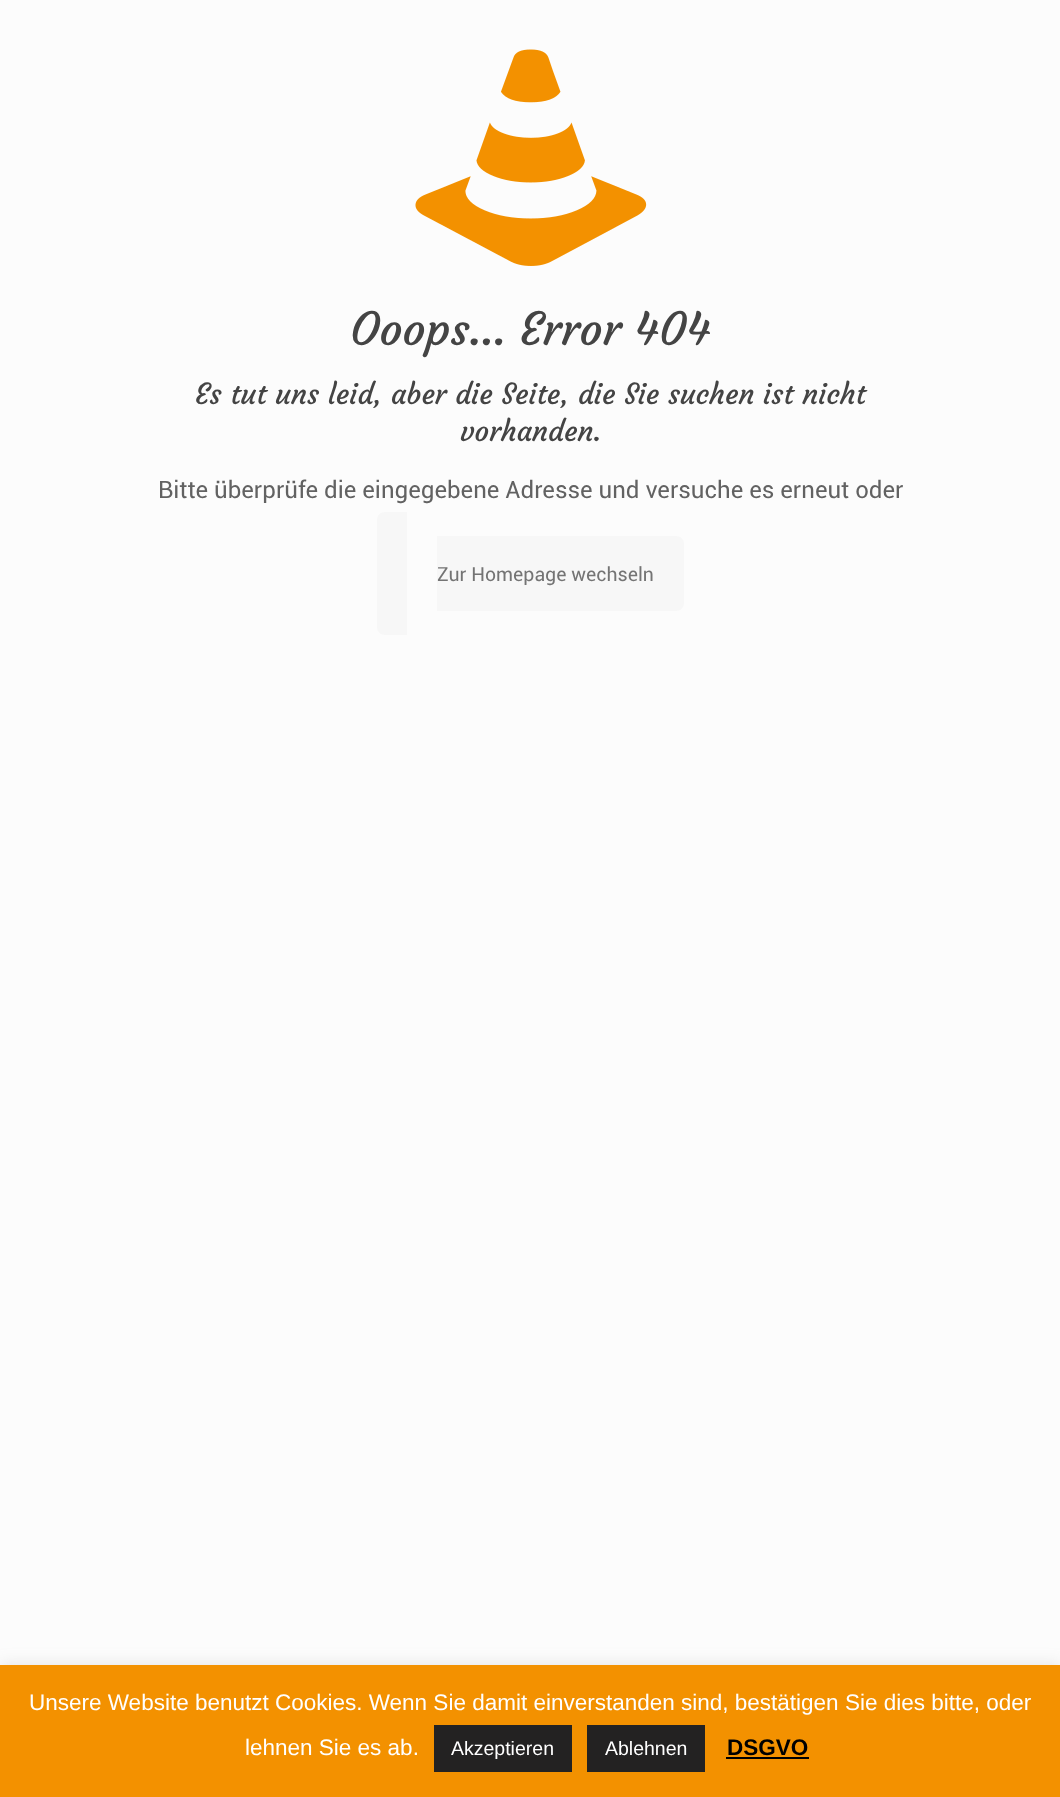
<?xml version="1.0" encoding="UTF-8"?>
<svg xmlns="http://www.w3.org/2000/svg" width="1060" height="1797">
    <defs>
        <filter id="blur1" x="-50%" y="-200%" width="200%" height="500%"><feGaussianBlur stdDeviation="7.5"/></filter>
    </defs>
    <rect width="100%" height="100%" fill="#FCFCFC"/>
    <image x="415" y="49" width="232" height="217" href="img_01.png"/>
    <text x="350" y="345" font-family="Courgette" font-size="45" fill="#444444">Ooops... Error 404</text>
    <text x="195" y="404" font-family="Courgette" font-size="28.5" fill="#444444">Es tut uns leid, aber die Seite, die Sie suchen ist nicht</text>
    <text x="460" y="441" font-family="Courgette" font-size="28.5" fill="#444444">vorhanden.</text>
    <text x="158" y="498" font-family="Roboto" font-size="24" fill="#626262">Bitte überprüfe die eingegebene Adresse und versuche es erneut oder</text>
    <path d="M 437 536 H 676 C 680.5 536 684 539.5 684 544 V 603 C 684 607.5 680.5 611 676 611 H 437 Z" fill="#F7F7F7"/>
    <text x="437" y="581" font-family="Roboto" font-size="19.5" fill="#747474">Zur Homepage wechseln</text>
    <path d="M 385 512 H 407 V 635 H 385 C 380.5 635 377 631.5 377 627 V 520 C 377 515.5 380.5 512 385 512 Z" fill="#F7F7F7"/>
    <rect x="0" y="1664" width="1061" height="132" fill="#ACABAB" fill-opacity="0.3" filter="url(#blur1)"/>
    <rect x="0" y="1665" width="1060" height="132" fill="#F39100"/>
    <text x="29" y="1710" font-family="Liberation Sans" font-size="22.5" fill="#FFFFFF">Unsere Website benutzt Cookies. Wenn Sie damit einverstanden sind, bestätigen Sie dies bitte, oder</text>
    <text x="245" y="1755" font-family="Liberation Sans" font-size="22.5" fill="#FFFFFF">lehnen Sie es ab.</text>
    <rect x="434" y="1725" width="138" height="47" fill="#232222"/>
    <text x="451" y="1755" font-family="Liberation Sans" font-size="19.5" fill="#FFFFFF">Akzeptieren</text>
    <rect x="587" y="1725" width="118" height="47" fill="#232222"/>
    <text x="605" y="1755" font-family="Liberation Sans" font-size="19.5" fill="#FFFFFF">Ablehnen</text>
    <text x="727" y="1755" font-family="Liberation Sans" font-size="22.5" font-weight="700" fill="#000000">DSGVO</text>
    <rect x="726" y="1757" width="83" height="2" fill="#000000"/>
</svg>
